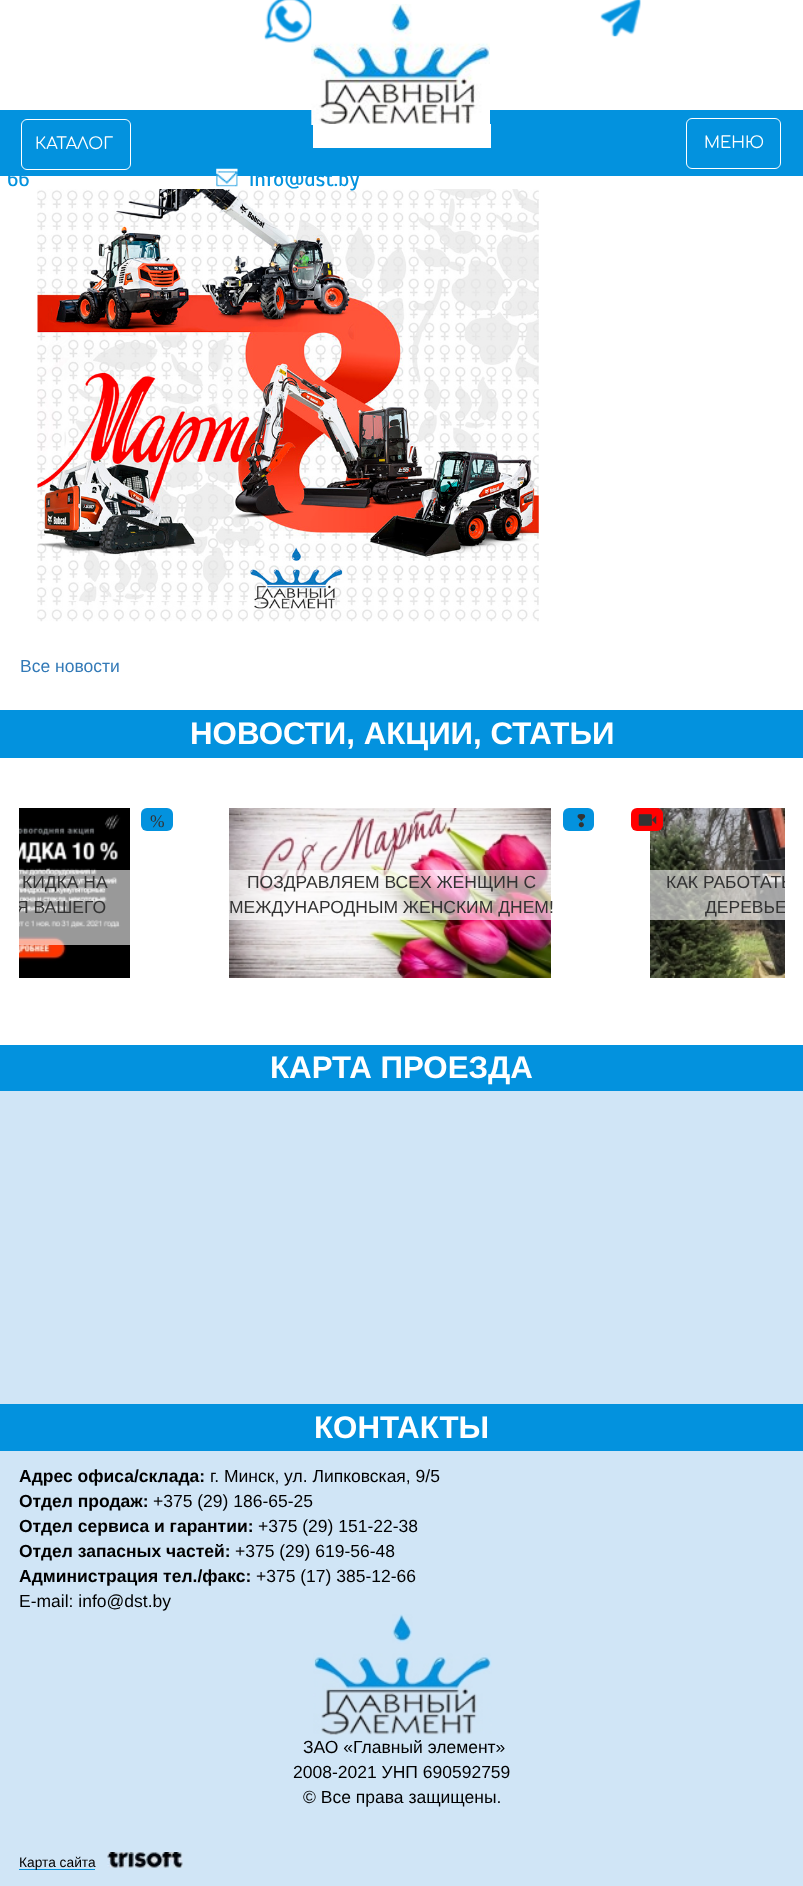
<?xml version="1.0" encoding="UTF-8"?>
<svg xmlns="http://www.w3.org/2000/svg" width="803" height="1886">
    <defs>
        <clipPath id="clip1"><rect x="19" y="870" width="115" height="75"/></clipPath>
        <clipPath id="clip2"><rect x="650" y="870" width="135" height="50"/></clipPath>
    </defs>
    <rect width="100%" height="100%" fill="#FFFFFF"/>
    <rect x="0" y="110" width="803" height="66" fill="#0392DE"/>
    <rect x="21.5" y="119.5" width="109" height="50" rx="5.5" fill="none" stroke="#FFFFFF"/>
    <text x="35" y="149" font-family="Comfortaa" font-size="16.25" fill="#FFFFFF">КАТАЛОГ</text>
    <rect x="686.5" y="118.5" width="94" height="50" rx="5.5" fill="none" stroke="#FFFFFF"/>
    <text x="704" y="148" font-family="Comfortaa" font-size="16.25" fill="#FFFFFF">МЕНЮ</text>
    <image x="264" y="0" width="48" height="43" href="img_01.png"/>
    <image x="600" y="0" width="41" height="37" href="img_02.png"/>
    <image x="311" y="4" width="179" height="121" href="img_03.png"/>
    <rect x="313" y="124" width="178" height="24" fill="#FFFFFF"/>
    <text x="7" y="186" font-family="Scada" font-size="21.25" fill="#0392DE">66</text>
    <image x="216" y="168" width="22" height="19" href="img_04.png"/>
    <image x="37" y="189" width="502" height="433" href="img_05.png"/>
    <text x="249" y="186" font-family="Scada" font-size="21.25" fill="#0392DE">info@dst.by</text>
    <text x="20" y="672" font-family="Liberation Sans" font-size="17.5" fill="#337AB7">Все новости</text>
    <rect x="0" y="710" width="803" height="48" fill="#0392DE"/>
    <text x="190" y="744" font-family="Liberation Sans" font-size="31.25" font-weight="700" fill="#FFFFFF">НОВОСТИ, АКЦИИ, СТАТЬИ</text>
    <image x="19" y="808" width="111" height="170" href="img_06.png"/>
    <rect x="141" y="808" width="32" height="23" rx="6" fill="#0392DE"/>
    <text x="150" y="827" font-family="Liberation Serif" font-size="17.5" fill="#333333">%</text>
    <rect x="19" y="870" width="111" height="75" fill="#FFFFFF" fill-opacity="0.6"/>
    <text x="22" y="888" font-family="Liberation Sans" font-size="17.5" fill="#333333">КИДКА НА</text>
    <g clip-path="url(#clip1)">
        <text x="16" y="913" font-family="Liberation Sans" font-size="17.5" fill="#333333">Я ВАШЕГО</text>
    </g>
    <image x="229" y="808" width="322" height="170" href="img_07.png"/>
    <rect x="563" y="808" width="31" height="23" rx="6" fill="#0392DE"/>
    <text x="574" y="827" font-family="DejaVu Sans" font-size="17.5" fill="#333333">❢</text>
    <rect x="229" y="870" width="322" height="50" fill="#FFFFFF" fill-opacity="0.6"/>
    <text x="247" y="888" font-family="Liberation Sans" font-size="17.5" fill="#333333">ПОЗДРАВЛЯЕМ ВСЕХ ЖЕНЩИН С</text>
    <text x="229" y="913" font-family="Liberation Sans" font-size="17.5" fill="#333333">МЕЖДУНАРОДНЫМ ЖЕНСКИМ ДНЕМ!</text>
    <image x="650" y="808" width="135" height="170" href="img_09.png"/>
    <rect x="631" y="808" width="32" height="23" rx="6" fill="#FF0000"/>
    <image x="638" y="814" width="19" height="12" href="img_08.png"/>
    <rect x="650" y="870" width="135" height="50" fill="#FFFFFF" fill-opacity="0.6"/>
    <g clip-path="url(#clip2)">
        <text x="666" y="888" font-family="Liberation Sans" font-size="17.5" fill="#333333">КАК РАБОТАТЬ</text>
        <text x="705" y="913" font-family="Liberation Sans" font-size="17.5" fill="#333333">ДЕРЕВЬЕ</text>
    </g>
    <rect x="0" y="1091" width="803" height="795" fill="#D0E5F6"/>
    <rect x="0" y="1045" width="803" height="46" fill="#0392DE"/>
    <text x="270" y="1078" font-family="Liberation Sans" font-size="31.25" font-weight="700" fill="#FFFFFF">КАРТА ПРОЕЗДА</text>
    <rect x="0" y="1404" width="803" height="47" fill="#0392DE"/>
    <text x="314" y="1438" font-family="Liberation Sans" font-size="31.25" font-weight="700" fill="#FFFFFF">КОНТАКТЫ</text>
    <text x="19" y="1482" font-family="Liberation Sans" font-size="17.5" font-weight="700" fill="#000000">Адрес офиса/склада:</text>
    <text x="210" y="1482" font-family="Liberation Sans" font-size="17.5" fill="#000000">г. Минск, ул. Липковская, 9/5</text>
    <text x="19" y="1507" font-family="Liberation Sans" font-size="17.5" font-weight="700" fill="#000000">Отдел продаж:</text>
    <text x="153" y="1507" font-family="Liberation Sans" font-size="17.5" fill="#000000">+375 (29) 186-65-25</text>
    <text x="19" y="1532" font-family="Liberation Sans" font-size="17.5" font-weight="700" fill="#000000">Отдел сервиса и гарантии:</text>
    <text x="258" y="1532" font-family="Liberation Sans" font-size="17.5" fill="#000000">+375 (29) 151-22-38</text>
    <text x="19" y="1557" font-family="Liberation Sans" font-size="17.5" font-weight="700" fill="#000000">Отдел запасных частей:</text>
    <text x="235" y="1557" font-family="Liberation Sans" font-size="17.5" fill="#000000">+375 (29) 619-56-48</text>
    <text x="19" y="1582" font-family="Liberation Sans" font-size="17.5" font-weight="700" fill="#000000">Администрация тел./факс:</text>
    <text x="256" y="1582" font-family="Liberation Sans" font-size="17.5" fill="#000000">+375 (17) 385-12-66</text>
    <text x="19" y="1607" font-family="Liberation Sans" font-size="17.5" fill="#000000">E-mail: info@dst.by</text>
    <image x="313" y="1614" width="179" height="121" href="img_10.png"/>
    <text x="303" y="1753" font-family="Liberation Sans" font-size="17.5" fill="#000000">ЗАО «Главный элемент»</text>
    <text x="293" y="1778" font-family="Liberation Sans" font-size="17.5" fill="#000000">2008-2021 УНП 690592759</text>
    <text x="303" y="1803" font-family="Liberation Sans" font-size="17.5" fill="#000000">© Все права защищены.</text>
    <rect x="19" y="1869" width="76" height="1" fill="#0392DE"/>
    <text x="19" y="1867" font-family="Liberation Sans" font-size="13.75" fill="#000000">Карта сайта</text>
    <image x="107" y="1852" width="76" height="16" href="img_11.png"/>
</svg>
